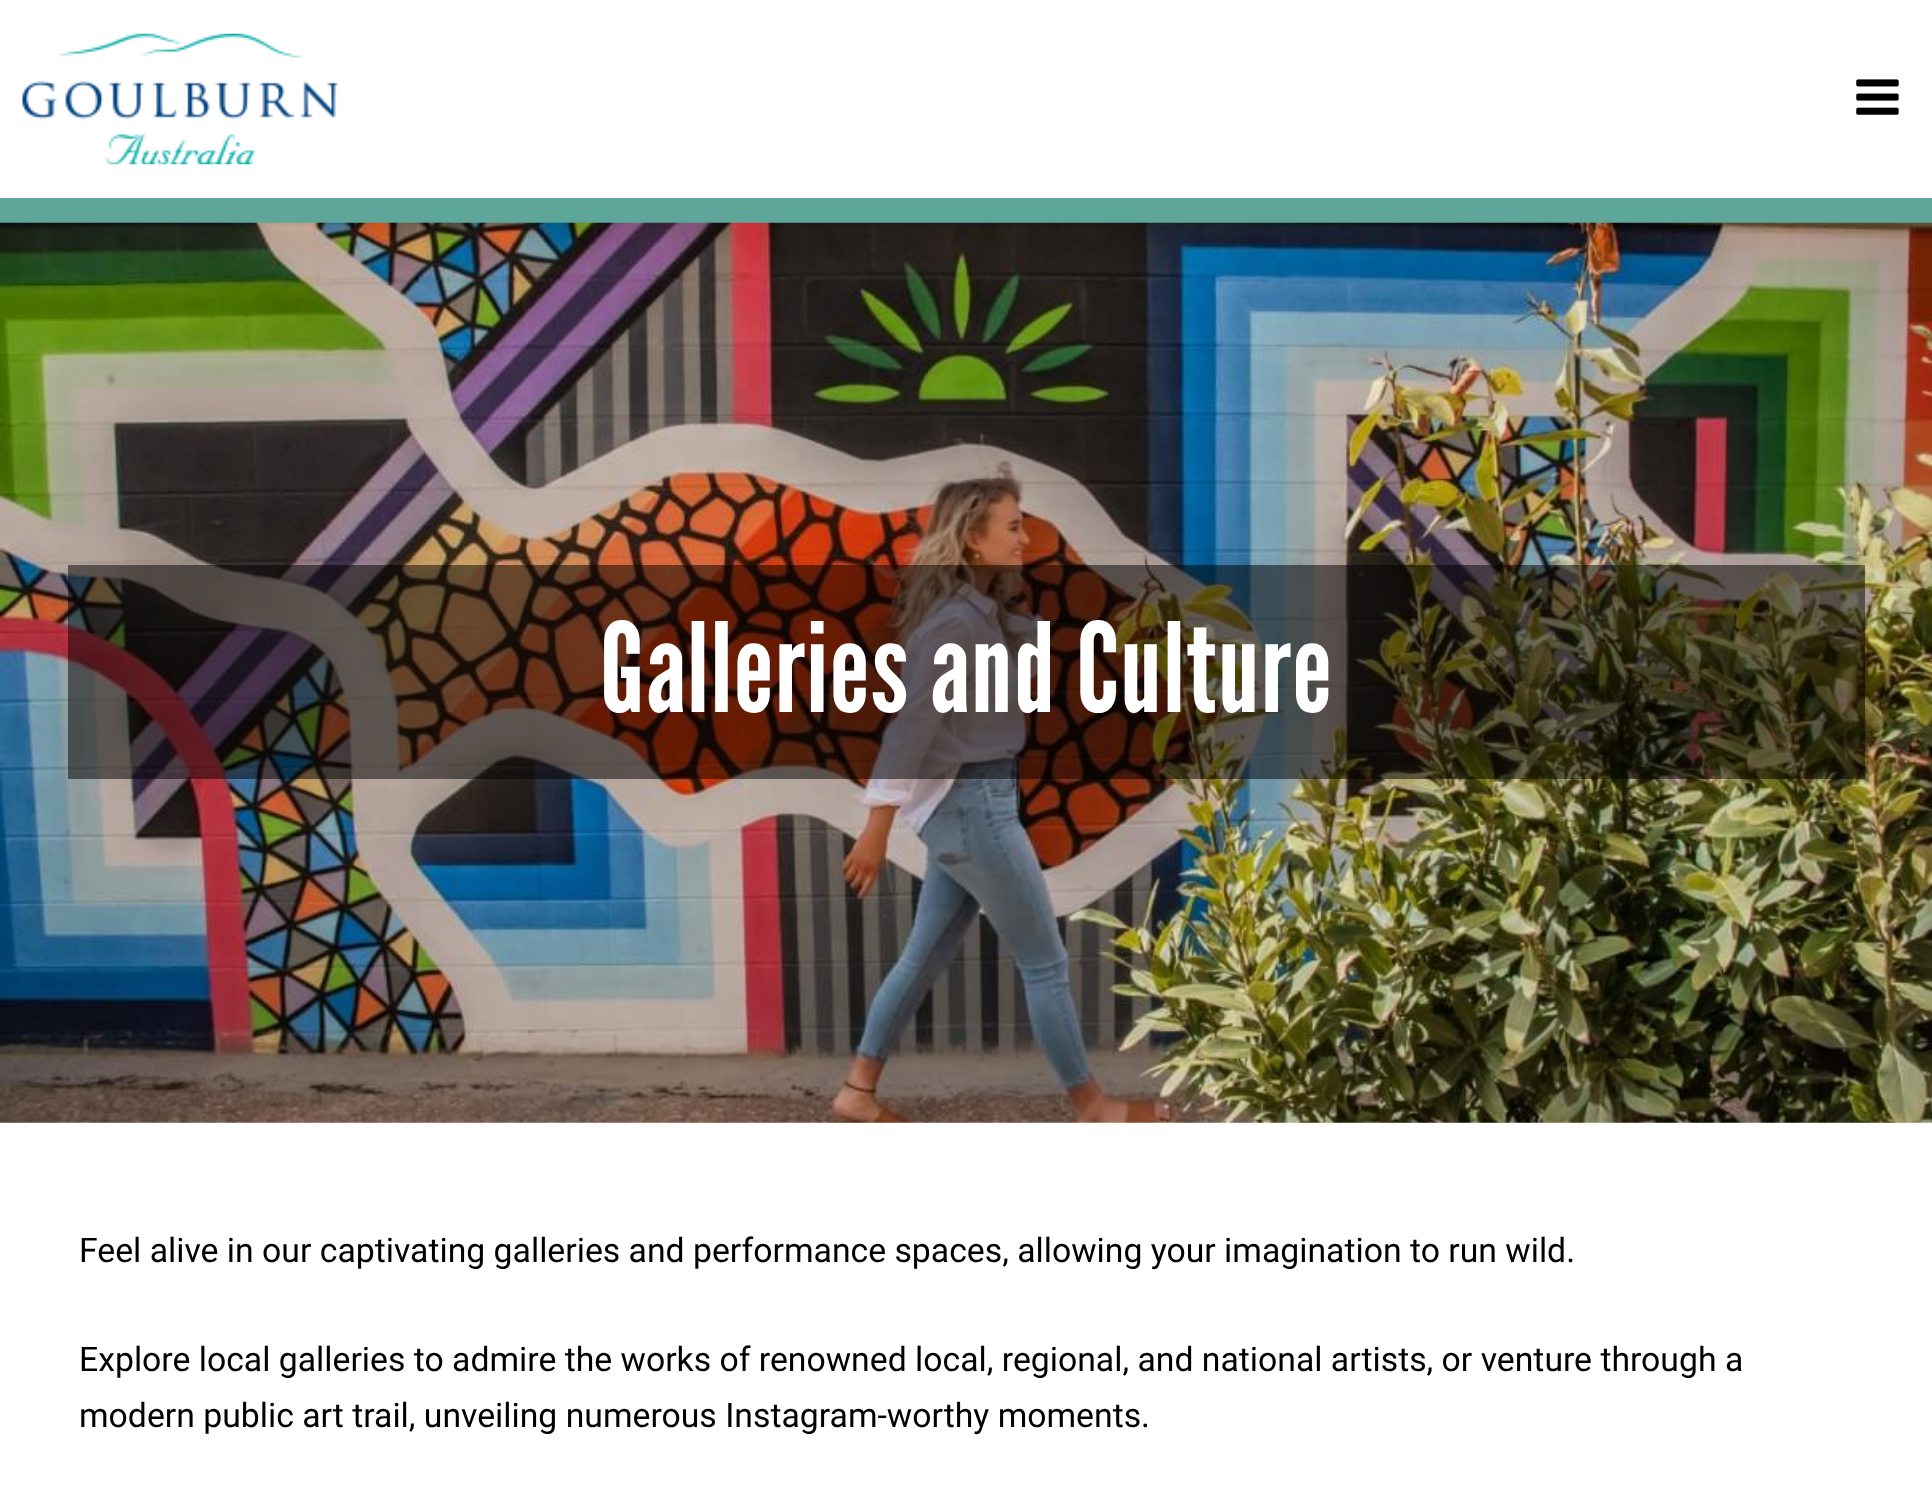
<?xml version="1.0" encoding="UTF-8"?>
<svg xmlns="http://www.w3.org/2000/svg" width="1932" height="1485">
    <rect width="100%" height="100%" fill="#FFFFFF"/>
    <image x="22" y="33" width="316" height="132" href="img_01.png"/>
    <image x="1856" y="79" width="43" height="36" href="img_02.png"/>
    <rect x="0" y="198" width="1932" height="25" fill="#5EA59A"/>
    <image x="0" y="222" width="1932" height="901" href="img_03.png"/>
    <rect x="68" y="565" width="1797" height="214" fill="#000000" fill-opacity="0.5"/>
    <text x="600" y="712" font-family="League Gothic" font-size="123.75" letter-spacing="1.1" fill="#FFFFFF">Galleries and Culture</text>
    <text x="79" y="1262" font-family="Roboto" font-size="33.75" fill="#000000">Feel alive in our captivating galleries and performance spaces, allowing your imagination to run wild.</text>
    <text font-family="Roboto" font-size="33.75" fill="#000000">
        <tspan x="79" y="1371">Explore local galleries to admire the works of renowned local, regional, and national artists, or venture through a</tspan>
        <tspan x="79" y="1427">modern public art trail, unveiling numerous Instagram-worthy moments.</tspan>
    </text>
</svg>
